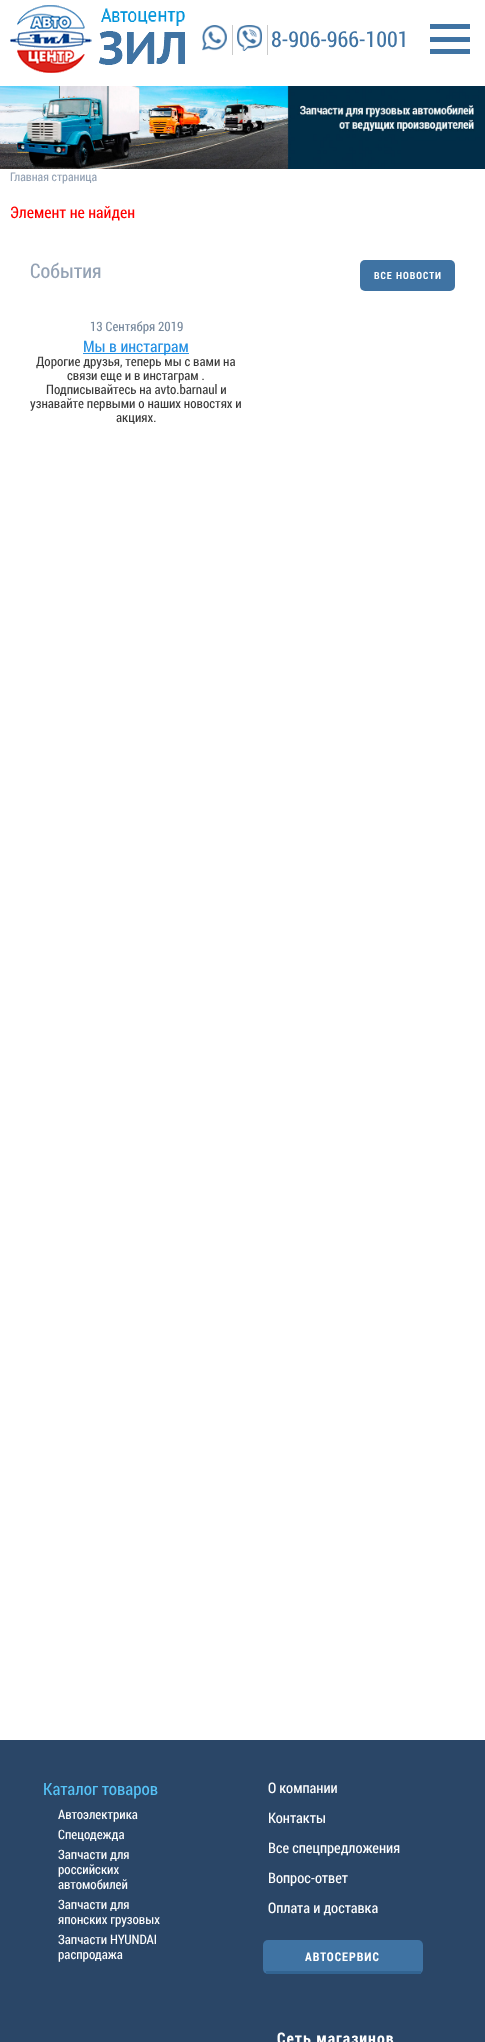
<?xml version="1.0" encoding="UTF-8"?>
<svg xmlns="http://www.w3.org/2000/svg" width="485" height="2042">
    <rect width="100%" height="100%" fill="#FFFFFF"/>
    <image x="10" y="5" width="175" height="68" href="img_01.png"/>
    <image x="10" y="5" width="175" height="68" href="img_02.png"/>
    <rect x="232" y="25" width="1" height="30" fill="#CBCBCB"/>
    <image x="202" y="25" width="25" height="26" href="img_03.png"/>
    <rect x="267" y="25" width="1" height="30" fill="#CBCBCB"/>
    <image x="237" y="25" width="25" height="26" href="img_04.png"/>
    <text x="271" y="47" font-family="Roboto Condensed" font-size="22" fill="#3F73A3">8-906-966-1001</text>
    <rect x="430" y="24" width="40" height="5" fill="#3F73A3"/>
    <rect x="430" y="37" width="40" height="5" fill="#3F73A3"/>
    <rect x="430" y="49" width="40" height="5" fill="#3F73A3"/>
    <image x="0" y="86" width="485" height="83" href="img_05.png"/>
    <text x="10" y="181" font-family="Roboto Condensed" font-size="12" fill="#94A2B4">Главная страница</text>
    <text x="10" y="218" font-family="Roboto Condensed" font-size="16" fill="#FF0000">Элемент не найден</text>
    <text x="30" y="278" font-family="Roboto Condensed" font-size="20" fill="#94A2B4">События</text>
    <rect x="360" y="260" width="95" height="31" rx="5" fill="#3F73A3"/>
    <text x="374" y="279" font-family="Roboto Condensed" font-size="10" font-weight="700" letter-spacing="1" fill="#FFFFFF">ВСЕ НОВОСТИ</text>
    <text x="90" y="331" font-family="Roboto Condensed" font-size="13" fill="#76889C">13 Сентября 2019</text>
    <rect x="83" y="353" width="106" height="1" fill="#2691E4"/>
    <text x="83" y="352" font-family="Roboto Condensed" font-size="16" fill="#2691E4">Мы в инстаграм</text>
    <text x="36" y="366" font-family="Roboto Condensed" font-size="13" fill="#3B3B3B">Дорогие друзья, теперь мы с вами на</text>
    <text x="67" y="380" font-family="Roboto Condensed" font-size="13" fill="#3B3B3B">связи еще и в инстаграм .</text>
    <text x="46" y="394" font-family="Roboto Condensed" font-size="13" fill="#3B3B3B">Подписывайтесь на avto.barnaul и</text>
    <text x="30" y="408" font-family="Roboto Condensed" font-size="13" fill="#3B3B3B">узнавайте первыми о наших новостях и</text>
    <text x="116" y="422" font-family="Roboto Condensed" font-size="13" fill="#3B3B3B">акциях.</text>
    <rect x="0" y="1740" width="485" height="302" fill="#2A4667"/>
    <text x="43" y="1795" font-family="Roboto Condensed" font-size="17" fill="#56C3F7">Каталог товаров</text>
    <text font-family="Roboto Condensed" font-size="13" fill="#FFFFFF">
        <tspan x="58" y="1819">Автоэлектрика</tspan>
        <tspan x="58" y="1839">Спецодежда</tspan>
        <tspan x="58" y="1859">Запчасти для</tspan>
        <tspan x="58" y="1874">российских</tspan>
        <tspan x="58" y="1889">автомобилей</tspan>
        <tspan x="58" y="1909">Запчасти для</tspan>
        <tspan x="58" y="1924">японских грузовых</tspan>
        <tspan x="58" y="1944">Запчасти HYUNDAI</tspan>
        <tspan x="58" y="1959">распродажа</tspan>
    </text>
    <text x="268" y="1793" font-family="Roboto Condensed" font-size="14.5" fill="#FFFFFF">О компании</text>
    <text x="268" y="1823" font-family="Roboto Condensed" font-size="14.5" fill="#FFFFFF">Контакты</text>
    <text x="268" y="1853" font-family="Roboto Condensed" font-size="14.5" fill="#FFFFFF">Все спецпредложения</text>
    <text x="268" y="1883" font-family="Roboto Condensed" font-size="14.5" fill="#FFFFFF">Вопрос-ответ</text>
    <text x="268" y="1913" font-family="Roboto Condensed" font-size="14.5" fill="#FFFFFF">Оплата и доставка</text>
    <rect x="263" y="1940" width="160" height="34" rx="5" fill="#3F73A3"/>
    <rect x="266" y="1971" width="155" height="3" fill="#326492"/>
    <text x="305" y="1961" font-family="Roboto Condensed" font-size="12" font-weight="700" letter-spacing="1" fill="#FFFFFF">АВТОСЕРВИС</text>
    <text x="277" y="2044" font-family="Roboto Condensed" font-size="16" font-weight="700" letter-spacing="1" fill="#FFFFFF">Сеть магазинов</text>
</svg>
